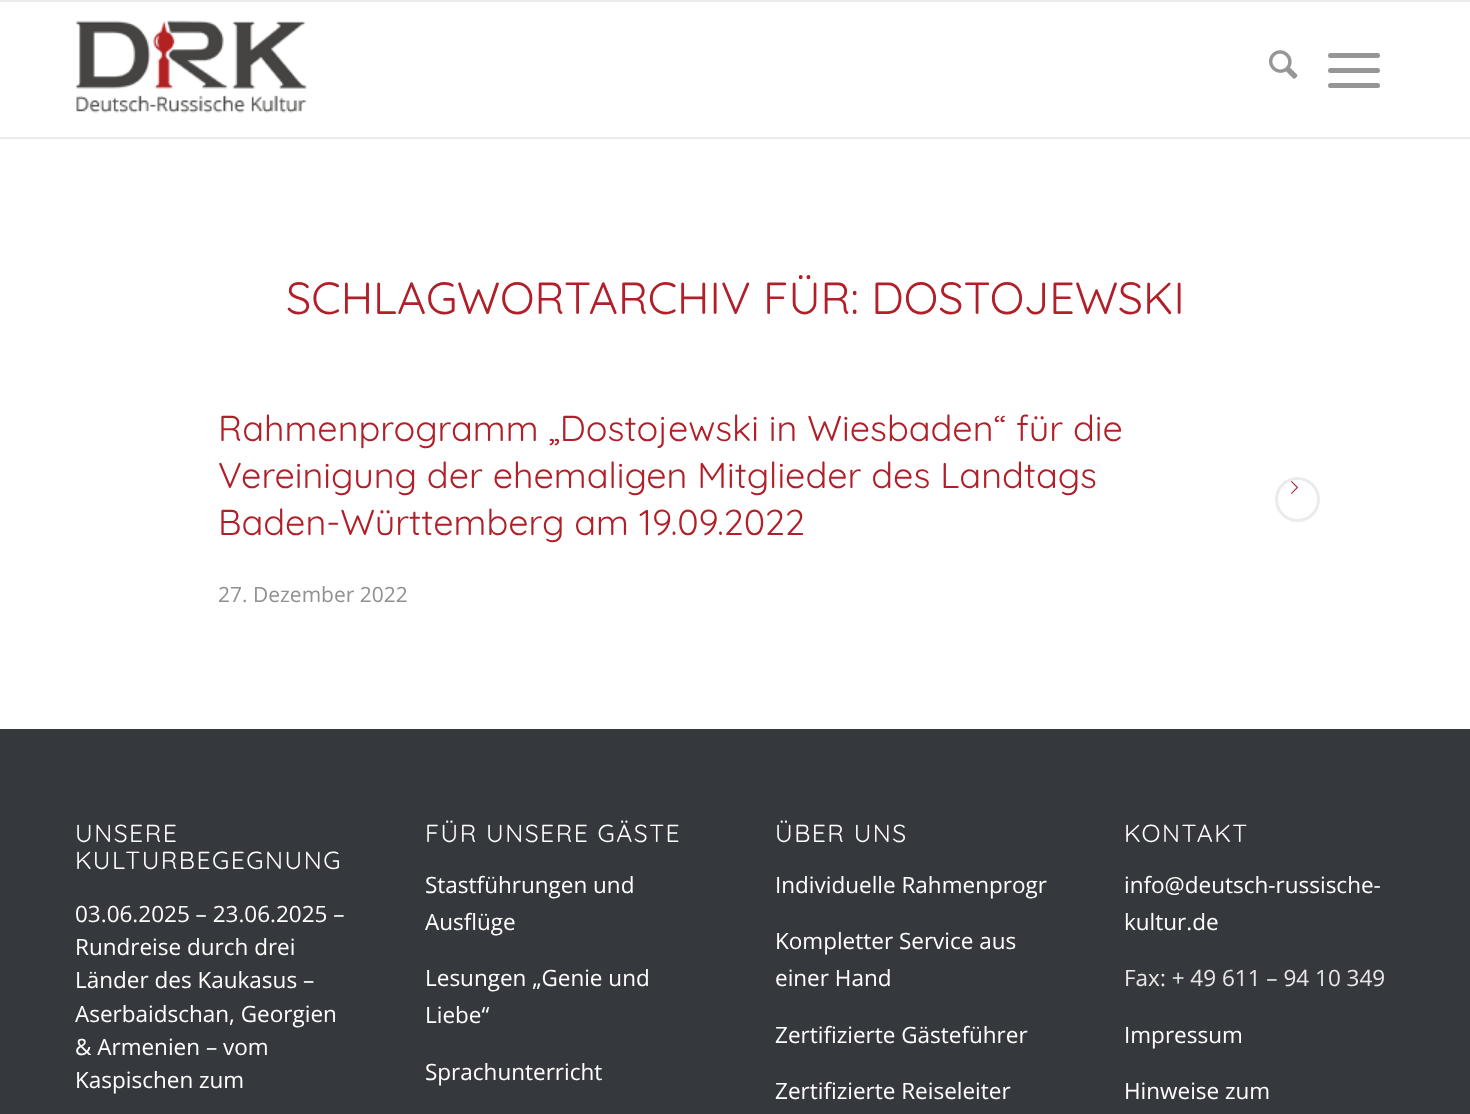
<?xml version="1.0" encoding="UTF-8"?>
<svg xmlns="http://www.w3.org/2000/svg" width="1470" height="1114">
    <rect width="100%" height="100%" fill="#FFFFFF"/>
    <rect x="0" y="0" width="1470" height="2" fill="#EBEBEB"/>
    <rect x="0" y="137" width="1470" height="2" fill="#EBEBEB"/>
    <image x="76" y="20" width="231" height="93" href="img_01.png"/>
    <image x="1269" y="50" width="29" height="29" href="img_02.png"/>
    <rect x="1328" y="68" width="52" height="5" rx="2.5" fill="#969696"/>
    <rect x="1328" y="53" width="52" height="5" rx="2.5" fill="#969696"/>
    <rect x="1328" y="83" width="52" height="5" rx="2.5" fill="#969696"/>
    <text x="286" y="314" font-family="Quicksand" font-size="45" fill="#B11F29">SCHLAGWORTARCHIV FÜR: DOSTOJEWSKI</text>
    <text font-family="Quicksand" font-size="36" fill="#B11F29">
        <tspan x="218" y="441">Rahmenprogramm „Dostojewski in Wiesbaden“ für die</tspan>
        <tspan x="218" y="488">Vereinigung der ehemaligen Mitglieder des Landtags</tspan>
        <tspan x="218" y="535">Baden-Württemberg am 19.09.2022</tspan>
    </text>
    <circle cx="1297.5" cy="499.5" r="21" fill="none" stroke="#EBEBEB" stroke-width="3"/>
    <image x="1291" y="481" width="7" height="13" href="img_03.png"/>
    <text x="218" y="602" font-family="Open Sans" font-size="21" fill="#919191">27. Dezember 2022</text>
    <rect x="0" y="729" width="1470" height="385" fill="#35383C"/>
    <text font-family="Quicksand" font-size="24.75" letter-spacing="1.5" fill="#FFFFFF">
        <tspan x="75" y="842">UNSERE</tspan>
        <tspan x="75" y="869">KULTURBEGEGNUNG</tspan>
    </text>
    <text font-family="Open Sans" font-size="22.5" fill="#FFFFFF">
        <tspan x="75" y="922">03.06.2025 – 23.06.2025 –</tspan>
        <tspan x="75" y="955">Rundreise durch drei</tspan>
        <tspan x="75" y="988">Länder des Kaukasus –</tspan>
        <tspan x="75" y="1022">Aserbaidschan, Georgien</tspan>
        <tspan x="75" y="1055">&amp; Armenien – vom</tspan>
        <tspan x="75" y="1088">Kaspischen zum</tspan>
    </text>
    <text x="425" y="842" font-family="Quicksand" font-size="24.75" letter-spacing="1.5" fill="#FFFFFF">FÜR UNSERE GÄSTE</text>
    <text font-family="Open Sans" font-size="22.5" fill="#FFFFFF">
        <tspan x="425" y="893">Stastführungen und</tspan>
        <tspan x="425" y="930">Ausflüge</tspan>
    </text>
    <text font-family="Open Sans" font-size="22.5" fill="#FFFFFF">
        <tspan x="425" y="986">Lesungen „Genie und</tspan>
        <tspan x="425" y="1023">Liebe“</tspan>
    </text>
    <text x="425" y="1080" font-family="Open Sans" font-size="22.5" fill="#FFFFFF">Sprachunterricht</text>
    <text x="775" y="842" font-family="Quicksand" font-size="24.75" letter-spacing="1.5" fill="#FFFFFF">ÜBER UNS</text>
    <text x="775" y="893" font-family="Open Sans" font-size="22.5" fill="#FFFFFF">Individuelle Rahmenprogr</text>
    <text font-family="Open Sans" font-size="22.5" fill="#FFFFFF">
        <tspan x="775" y="949">Kompletter Service aus</tspan>
        <tspan x="775" y="986">einer Hand</tspan>
    </text>
    <text x="775" y="1043" font-family="Open Sans" font-size="22.5" fill="#FFFFFF">Zertifizierte Gästeführer</text>
    <text x="775" y="1099" font-family="Open Sans" font-size="22.5" fill="#FFFFFF">Zertifizierte Reiseleiter</text>
    <text x="1124" y="842" font-family="Quicksand" font-size="24.75" letter-spacing="1.5" fill="#FFFFFF">KONTAKT</text>
    <text font-family="Open Sans" font-size="22.5" fill="#FFFFFF">
        <tspan x="1124" y="893">info@deutsch-russische-</tspan>
        <tspan x="1124" y="930">kultur.de</tspan>
    </text>
    <text x="1124" y="986" font-family="Open Sans" font-size="22.5" fill="#E8E8E8">Fax: + 49 611 – 94 10 349</text>
    <text x="1124" y="1043" font-family="Open Sans" font-size="22.5" fill="#FFFFFF">Impressum</text>
    <text x="1124" y="1099" font-family="Open Sans" font-size="22.5" fill="#FFFFFF">Hinweise zum</text>
</svg>
